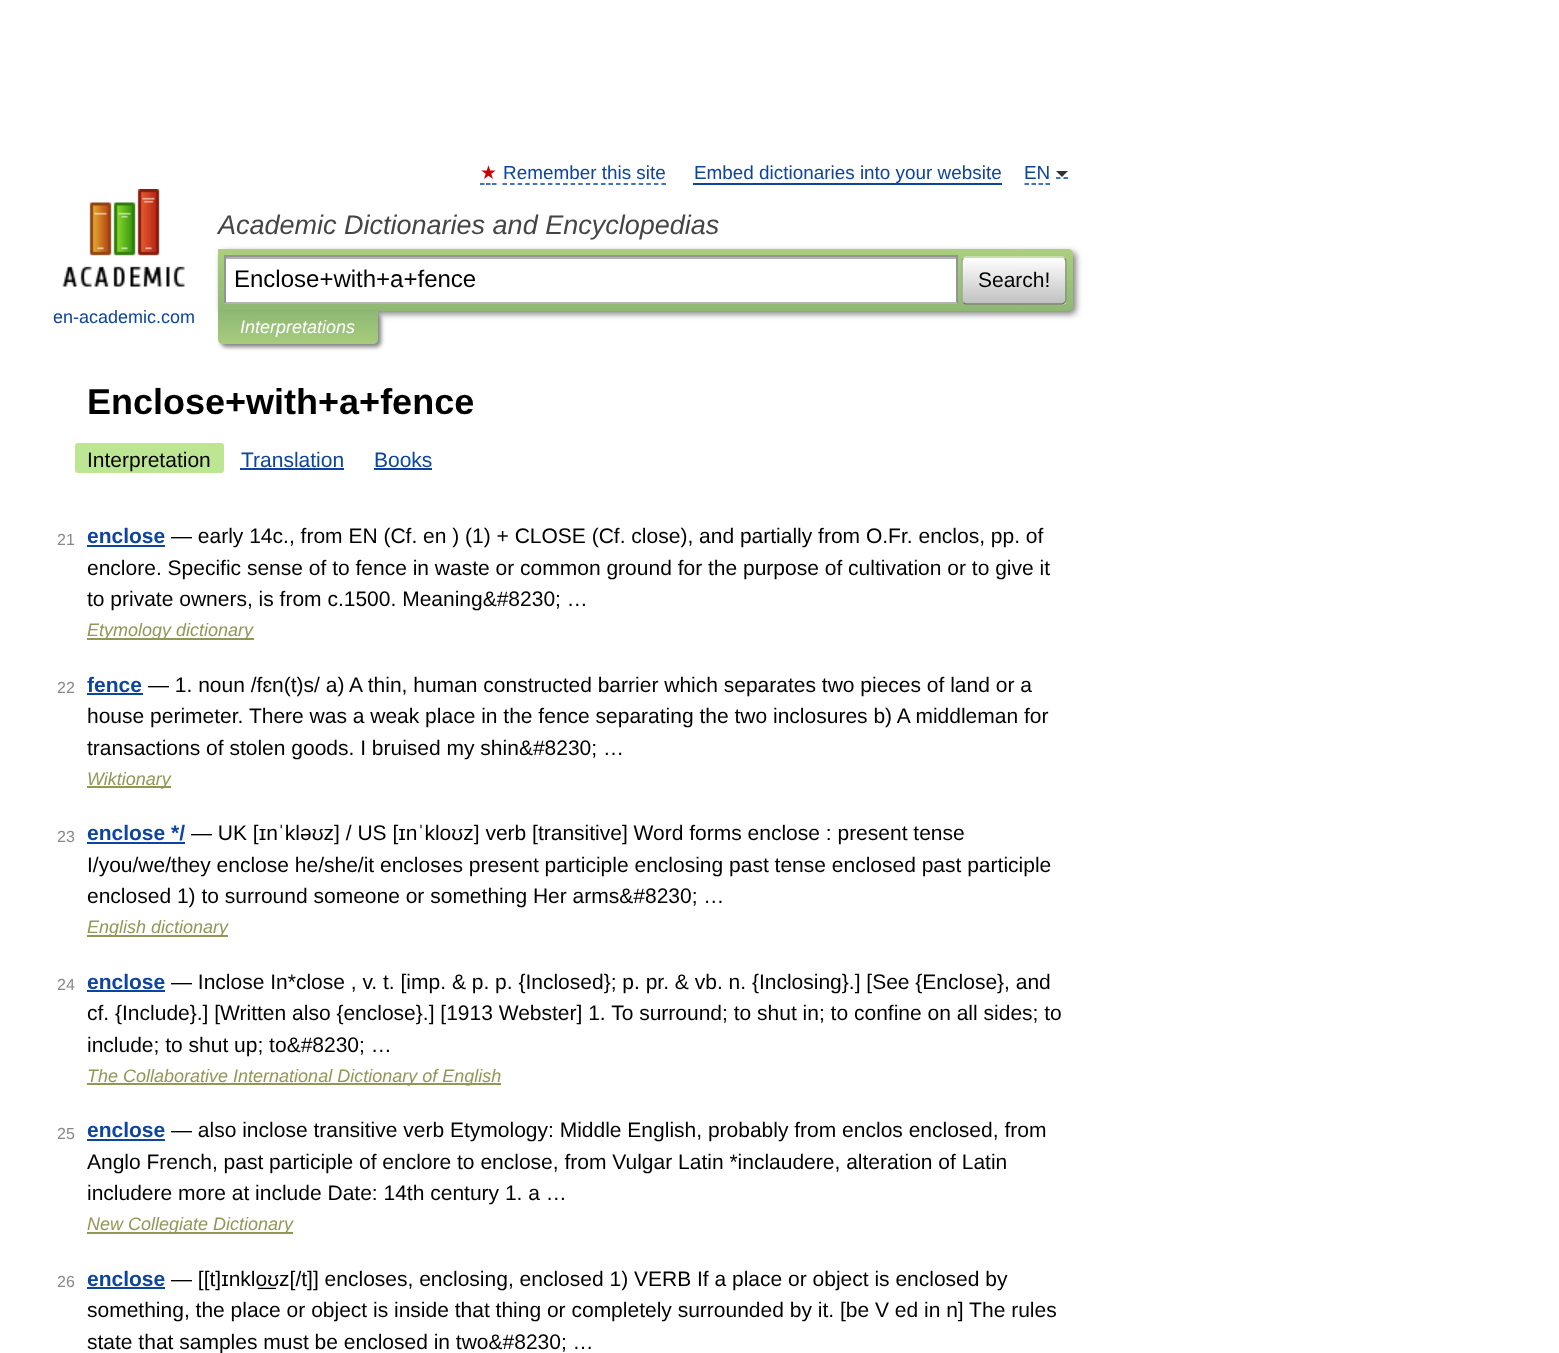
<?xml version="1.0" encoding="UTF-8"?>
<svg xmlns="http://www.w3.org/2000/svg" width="1559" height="1353">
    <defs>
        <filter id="blur1" x="-50%" y="-200%" width="200%" height="500%"><feGaussianBlur stdDeviation="3"/></filter>
        <linearGradient id="g1" gradientUnits="userSpaceOnUse" x1="645" y1="249" x2="645" y2="311"><stop offset="0" stop-color="#ABCF7E"/><stop offset="1" stop-color="#8EB874"/></linearGradient>
        <clipPath id="clip1"><rect x="962" y="257" width="105" height="48" rx="5"/></clipPath>
        <linearGradient id="g2" gradientUnits="userSpaceOnUse" x1="1014" y1="258" x2="1014" y2="303"><stop offset="0" stop-color="#FFFFFF"/><stop offset="1" stop-color="#C1C1C1"/></linearGradient>
        <linearGradient id="g3" gradientUnits="userSpaceOnUse" x1="1014" y1="303" x2="1014" y2="348"><stop offset="0" stop-color="#FFFFFF"/><stop offset="1" stop-color="#C1C1C1"/></linearGradient>
        <filter id="blur2" x="-50%" y="-200%" width="200%" height="500%"><feGaussianBlur stdDeviation="2"/></filter>
        <linearGradient id="g4" gradientUnits="userSpaceOnUse" x1="298" y1="311" x2="298" y2="344"><stop offset="0" stop-color="#8FB875"/><stop offset="1" stop-color="#A7CC7D"/></linearGradient>
    </defs>
    <rect width="100%" height="100%" fill="#FFFFFF"/>
    <text x="480" y="179" font-family="DejaVu Sans" font-size="18.9" fill="#CC0000">★</text>
    <path d="M 480 184 H 484.5 M 486 184 H 490.5 M 492 184 H 496.5" fill="none" stroke="#0044AA" stroke-width="1.5"/>
    <text x="503" y="179" font-family="Liberation Sans" font-size="18.9" fill="#0D44A0">Remember this site</text>
    <path d="M 502.5 184 H 666" fill="none" stroke="#0044AA" stroke-width="1.5" stroke-dasharray="4.5 3.07"/>
    <text x="694" y="179" font-family="Liberation Sans" font-size="18.9" fill="#0D44A0">Embed dictionaries into your website</text>
    <rect x="693" y="183" width="309" height="2" fill="#0D44A0"/>
    <path d="M 1024.5 184 H 1050" fill="none" stroke="#0044AA" stroke-width="1.5" stroke-dasharray="4.5 2.5"/>
    <path d="M 1056 178 H 1060.5 M 1063.5 178 H 1068" fill="none" stroke="#0044AA" stroke-width="1.5"/>
    <text x="1024" y="179" font-family="Liberation Sans" font-size="18.9" fill="#0D44A0">EN</text>
    <path d="M 1056 171 H 1068 L 1062 177 Z" fill="#333333"/>
    <text x="218" y="234" font-family="Liberation Sans" font-size="27" font-style="italic" fill="#454545">Academic Dictionaries and Encyclopedias</text>
    <rect x="221" y="252" width="855" height="62" rx="5" fill="#000000" fill-opacity="0.5" filter="url(#blur1)"/>
    <path d="M 218 249 H 1068 C 1071 249 1073 251 1073 254 V 306 C 1073 309 1071 311 1068 311 H 218 Z" fill="url(#g1)"/>
    <rect x="226" y="259" width="730" height="43" fill="#FFFFFF"/>
    <rect x="225" y="257" width="731" height="2" fill="#B3B3B3"/>
    <rect x="224" y="255" width="733" height="2" fill="#949494"/>
    <rect x="956" y="255" width="2" height="48" fill="#949494"/>
    <rect x="224" y="302" width="733" height="2" fill="#B4B4B4"/>
    <rect x="224" y="255" width="2" height="48" fill="#949494"/>
    <text x="234" y="287" font-family="Liberation Sans" font-size="24" fill="#000000">Enclose+with+a+fence</text>
    <g clip-path="url(#clip1)">
        <rect x="962" y="258" width="105" height="45" fill="url(#g2)"/>
        <rect x="962" y="303" width="105" height="2" fill="url(#g3)"/>
    </g>
    <path d="M 963.5 258.5 C 964 257.5 965 257 966 257 H 1062 C 1063 257 1064 257.5 1064.5 258.5" fill="none" stroke="#D1E4BC" stroke-width="1.5"/>
    <path d="M 1064.5 258.5 C 1065.5 259 1066 260 1066 261 V 300 C 1066 301 1065.5 302 1064.5 302.5" fill="none" stroke="#7A8E69" stroke-width="1.5"/>
    <path d="M 1064.5 302.5 C 1064 303.5 1063 304 1062 304 H 966 C 965 304 964 303.5 963.5 302.5" fill="none" stroke="#5D7250" stroke-width="1.5"/>
    <path d="M 963.5 302.5 C 962.5 302 962 301 962 300 V 261 C 962 260 962.5 259 963.5 258.5" fill="none" stroke="#9AAE89" stroke-width="1.5"/>
    <text x="978" y="287" font-family="Liberation Sans" font-size="21" fill="#000000">Search!</text>
    <image x="62" y="189" width="123" height="98" href="img_01.png"/>
    <text x="53" y="323" font-family="Liberation Sans" font-size="18" fill="#0D44A0">en-academic.com</text>
    <rect x="221" y="314" width="160" height="33" rx="5" fill="#000000" fill-opacity="0.5" filter="url(#blur2)"/>
    <path d="M 218 311 H 378 V 339 C 378 342 376 344 373 344 H 223 C 220 344 218 342 218 339 Z" fill="url(#g4)"/>
    <text x="240" y="333" font-family="Liberation Sans" font-size="18" font-style="italic" fill="#FFFFFF">Interpretations</text>
    <text x="87" y="414" font-family="Liberation Sans" font-size="36" font-weight="700" fill="#000000">Enclose+with+a+fence</text>
    <rect x="75" y="443" width="149" height="30" rx="3" fill="#BDE693"/>
    <text x="87" y="467" font-family="Liberation Sans" font-size="21" fill="#000000">Interpretation</text>
    <text x="241" y="467" font-family="Liberation Sans" font-size="21" fill="#0D44A0">Translation</text>
    <rect x="240" y="468" width="104" height="2" fill="#0D44A0"/>
    <text x="374" y="467" font-family="Liberation Sans" font-size="21" fill="#0D44A0">Books</text>
    <rect x="374" y="468" width="58" height="2" fill="#0D44A0"/>
    <text x="57" y="545" font-family="Liberation Sans" font-size="16" fill="#898989">21</text>
    <text x="87" y="543" font-family="Liberation Sans" font-size="21" font-weight="700" fill="#0D44A0">enclose</text>
    <rect x="87" y="545" width="78" height="2" fill="#0D44A0"/>
    <text x="171" y="543" font-family="Liberation Sans" font-size="21" fill="#000000">— early 14c., from EN (Cf. en ) (1) + CLOSE (Cf. close), and partially from O.Fr. enclos, pp. of</text>
    <text font-family="Liberation Sans" font-size="21" fill="#000000">
        <tspan x="87" y="575">enclore. Specific sense of to fence in waste or common ground for the purpose of cultivation or to give it</tspan>
        <tspan x="87" y="606">to private owners, is from c.1500. Meaning&amp;#8230; …</tspan>
    </text>
    <rect x="87" y="638" width="167" height="2" fill="#939756"/>
    <text x="87" y="636" font-family="Liberation Sans" font-size="18" font-style="italic" fill="#939756">Etymology dictionary</text>
    <text x="57" y="693" font-family="Liberation Sans" font-size="16" fill="#898989">22</text>
    <text x="87" y="692" font-family="Liberation Sans" font-size="21" font-weight="700" fill="#0D44A0">fence</text>
    <rect x="87" y="693" width="56" height="2" fill="#0D44A0"/>
    <text x="148" y="692" font-family="Liberation Sans" font-size="21" fill="#000000">— 1. noun /fɛn(t)s/ a) A thin, human constructed barrier which separates two pieces of land or a</text>
    <text font-family="Liberation Sans" font-size="21" fill="#000000">
        <tspan x="87" y="723">house perimeter. There was a weak place in the fence separating the two inclosures b) A middleman for</tspan>
        <tspan x="87" y="755">transactions of stolen goods. I bruised my shin&amp;#8230; …</tspan>
    </text>
    <rect x="87" y="786" width="84" height="2" fill="#939756"/>
    <text x="87" y="785" font-family="Liberation Sans" font-size="18" font-style="italic" fill="#939756">Wiktionary</text>
    <text x="57" y="842" font-family="Liberation Sans" font-size="16" fill="#898989">23</text>
    <text x="87" y="840" font-family="Liberation Sans" font-size="21" font-weight="700" fill="#0D44A0">enclose */</text>
    <rect x="87" y="842" width="98" height="2" fill="#0D44A0"/>
    <text x="191" y="840" font-family="Liberation Sans" font-size="21" fill="#000000">— UK [ɪnˈkləʊz] / US [ɪnˈkloʊz] verb [transitive] Word forms enclose : present tense</text>
    <text font-family="Liberation Sans" font-size="21" fill="#000000">
        <tspan x="87" y="872">I/you/we/they enclose he/she/it encloses present participle enclosing past tense enclosed past participle</tspan>
        <tspan x="87" y="903">enclosed 1) to surround someone or something Her arms&amp;#8230; …</tspan>
    </text>
    <rect x="87" y="935" width="141" height="2" fill="#939756"/>
    <text x="87" y="933" font-family="Liberation Sans" font-size="18" font-style="italic" fill="#939756">English dictionary</text>
    <text x="57" y="990" font-family="Liberation Sans" font-size="16" fill="#898989">24</text>
    <text x="87" y="989" font-family="Liberation Sans" font-size="21" font-weight="700" fill="#0D44A0">enclose</text>
    <rect x="87" y="990" width="78" height="2" fill="#0D44A0"/>
    <text x="171" y="989" font-family="Liberation Sans" font-size="21" fill="#000000">— Inclose In*close , v. t. [imp. &amp; p. p. {Inclosed}; p. pr. &amp; vb. n. {Inclosing}.] [See {Enclose}, and</text>
    <text font-family="Liberation Sans" font-size="21" fill="#000000">
        <tspan x="87" y="1020">cf. {Include}.] [Written also {enclose}.] [1913 Webster] 1. To surround; to shut in; to confine on all sides; to</tspan>
        <tspan x="87" y="1052">include; to shut up; to&amp;#8230; …</tspan>
    </text>
    <rect x="87" y="1083" width="414" height="2" fill="#939756"/>
    <text x="87" y="1082" font-family="Liberation Sans" font-size="18" font-style="italic" fill="#939756">The Collaborative International Dictionary of English</text>
    <text x="57" y="1139" font-family="Liberation Sans" font-size="16" fill="#898989">25</text>
    <text x="87" y="1137" font-family="Liberation Sans" font-size="21" font-weight="700" fill="#0D44A0">enclose</text>
    <rect x="87" y="1139" width="78" height="2" fill="#0D44A0"/>
    <text x="171" y="1137" font-family="Liberation Sans" font-size="21" fill="#000000">— also inclose transitive verb Etymology: Middle English, probably from enclos enclosed, from</text>
    <text font-family="Liberation Sans" font-size="21" fill="#000000">
        <tspan x="87" y="1169">Anglo French, past participle of enclore to enclose, from Vulgar Latin *inclaudere, alteration of Latin</tspan>
        <tspan x="87" y="1200">includere more at include Date: 14th century 1. a …</tspan>
    </text>
    <rect x="87" y="1232" width="206" height="2" fill="#939756"/>
    <text x="87" y="1230" font-family="Liberation Sans" font-size="18" font-style="italic" fill="#939756">New Collegiate Dictionary</text>
    <text x="57" y="1287" font-family="Liberation Sans" font-size="16" fill="#898989">26</text>
    <text x="87" y="1286" font-family="Liberation Sans" font-size="21" font-weight="700" fill="#0D44A0">enclose</text>
    <rect x="87" y="1287" width="78" height="2" fill="#0D44A0"/>
    <text x="171" y="1286" font-family="Liberation Sans" font-size="21" fill="#000000">— [[t]ɪnklo͟ʊz[/t]] encloses, enclosing, enclosed 1) VERB If a place or object is enclosed by</text>
    <text font-family="Liberation Sans" font-size="21" fill="#000000">
        <tspan x="87" y="1317">something, the place or object is inside that thing or completely surrounded by it. [be V ed in n] The rules</tspan>
        <tspan x="87" y="1349">state that samples must be enclosed in two&amp;#8230; …</tspan>
    </text>
</svg>
